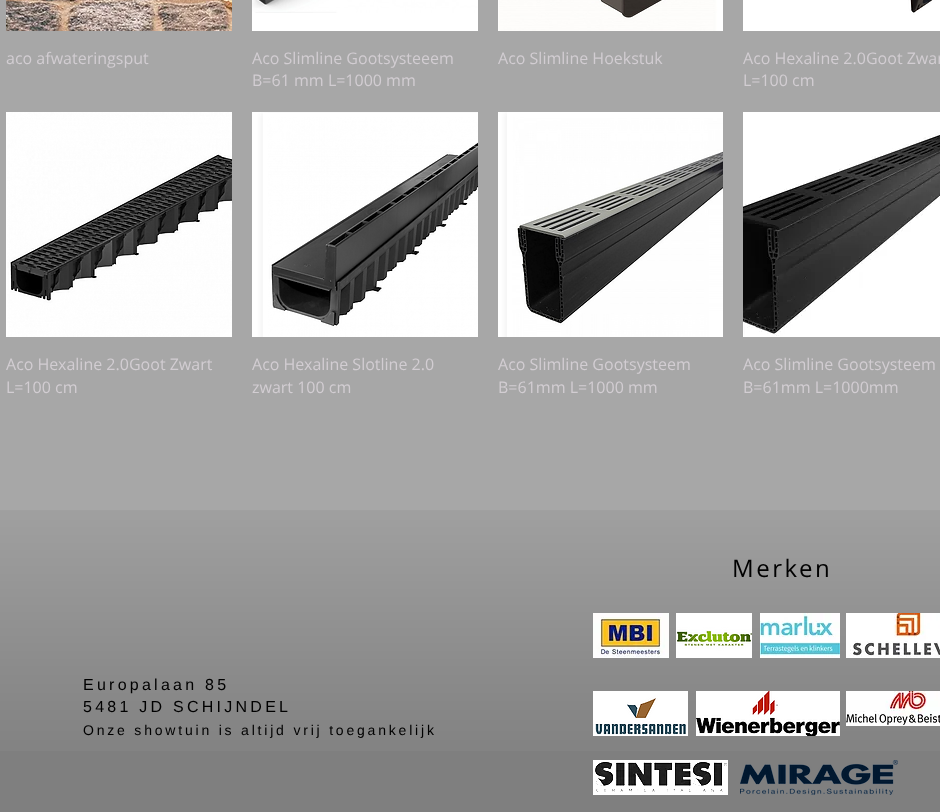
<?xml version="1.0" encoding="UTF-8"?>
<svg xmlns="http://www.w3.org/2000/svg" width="940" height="812">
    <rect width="100%" height="100%" fill="#A7A7A7"/>
    <image x="6" y="0" width="226" height="31" href="img_01.png"/>
    <text x="6" y="64" font-family="Open Sans" font-size="16" fill="#D2CDD2">aco afwateringsput</text>
    <image x="252" y="0" width="226" height="31" href="img_02.png"/>
    <text font-family="Open Sans" font-size="16" fill="#D2CDD2">
        <tspan x="252" y="64">Aco Slimline Gootsysteeem</tspan>
        <tspan x="252" y="86">B=61 mm L=1000 mm</tspan>
    </text>
    <image x="498" y="0" width="225" height="31" href="img_03.png"/>
    <text x="498" y="64" font-family="Open Sans" font-size="16" fill="#D2CDD2">Aco Slimline Hoekstuk</text>
    <image x="743" y="0" width="197" height="31" href="img_04.png"/>
    <text font-family="Open Sans" font-size="16" fill="#D2CDD2">
        <tspan x="743" y="64">Aco Hexaline 2.0Goot Zwar</tspan>
        <tspan x="743" y="86">L=100 cm</tspan>
    </text>
    <image x="6" y="112" width="226" height="225" href="img_05.png"/>
    <text font-family="Open Sans" font-size="16" fill="#D2CDD2">
        <tspan x="6" y="370">Aco Hexaline 2.0Goot Zwart</tspan>
        <tspan x="6" y="393">L=100 cm</tspan>
    </text>
    <image x="252" y="112" width="226" height="225" href="img_06.png"/>
    <text font-family="Open Sans" font-size="16" fill="#D2CDD2">
        <tspan x="252" y="370">Aco Hexaline Slotline 2.0</tspan>
        <tspan x="252" y="393">zwart 100 cm</tspan>
    </text>
    <image x="498" y="112" width="225" height="225" href="img_07.png"/>
    <text font-family="Open Sans" font-size="16" fill="#D2CDD2">
        <tspan x="498" y="370">Aco Slimline Gootsysteem</tspan>
        <tspan x="498" y="393">B=61mm L=1000 mm</tspan>
    </text>
    <image x="743" y="112" width="197" height="225" href="img_08.png"/>
    <text font-family="Open Sans" font-size="16" fill="#D2CDD2">
        <tspan x="743" y="370">Aco Slimline Gootsysteem</tspan>
        <tspan x="743" y="393">B=61mm L=1000mm</tspan>
    </text>
    <rect x="0" y="510" width="940" height="302" fill="#7F7F7F"/>
    <image x="0" y="510" width="940" height="241" href="img_09.png"/>
    <text x="732" y="577" font-family="Open Sans" font-size="24" letter-spacing="2.5" fill="#000000">Merken</text>
    <image x="593" y="613" width="76" height="45" href="img_10.png"/>
    <image x="676" y="613" width="76" height="45" href="img_11.png"/>
    <image x="760" y="613" width="80" height="45" href="img_12.png"/>
    <image x="846" y="613" width="94" height="45" href="img_13.png"/>
    <text font-family="Liberation Sans" font-size="16" letter-spacing="3.25" fill="#000000">
        <tspan x="83" y="690">Europalaan 85</tspan>
        <tspan x="83" y="712">5481 JD SCHIJNDEL</tspan>
    </text>
    <text x="83" y="735" font-family="Liberation Sans" font-size="14" letter-spacing="2.8" fill="#000000">Onze showtuin is altijd vrij toegankelijk</text>
    <image x="593" y="691" width="95" height="45" href="img_14.png"/>
    <image x="696" y="691" width="144" height="45" href="img_15.png"/>
    <image x="846" y="691" width="94" height="35" href="img_16.png"/>
    <image x="593" y="760" width="135" height="35" href="img_17.png"/>
    <image x="740" y="760" width="158" height="35" href="img_18.png"/>
</svg>
